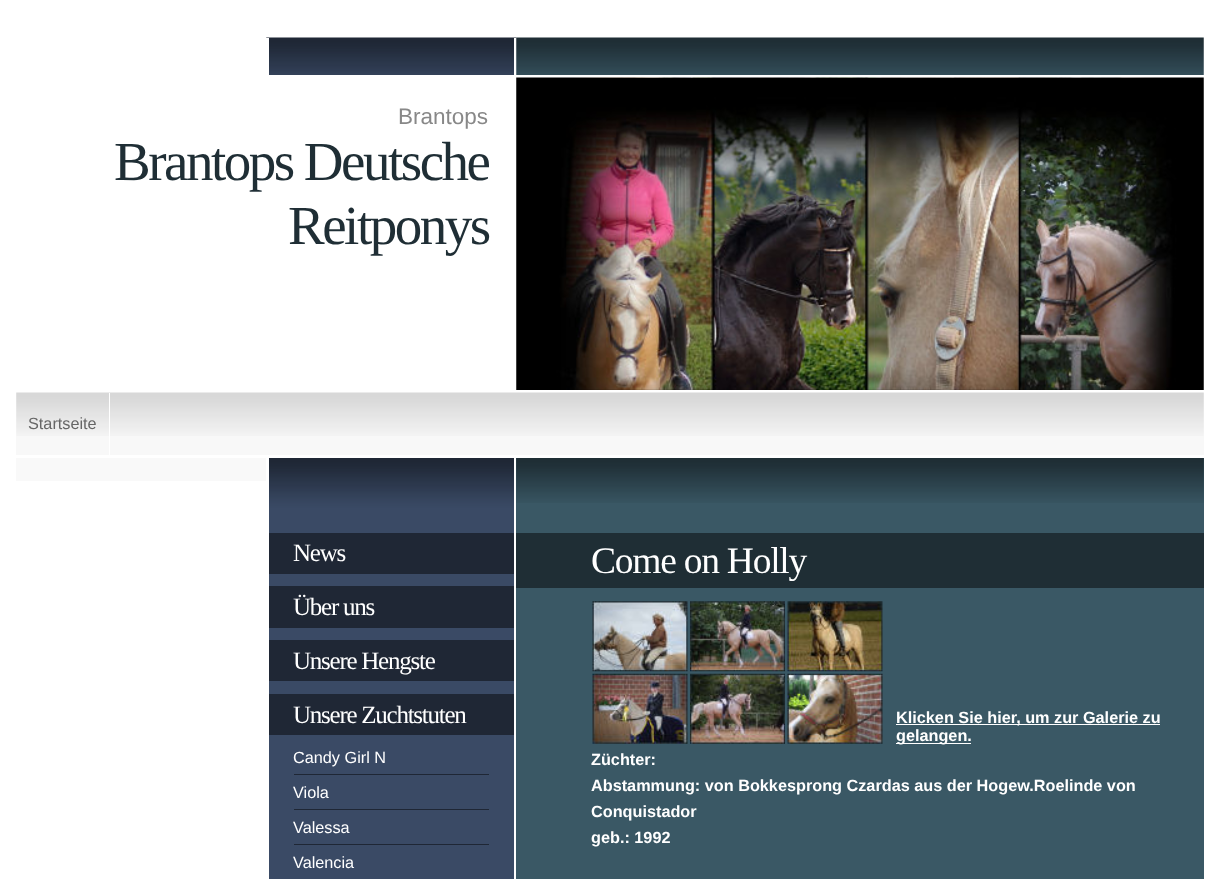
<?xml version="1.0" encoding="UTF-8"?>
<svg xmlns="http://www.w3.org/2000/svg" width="1218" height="879">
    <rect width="100%" height="100%" fill="#FFFFFF"/>
    <image x="266" y="37" width="251" height="38" href="img_01.png"/>
    <rect x="514" y="38" width="3" height="40" fill="#FFFFFF"/>
    <rect x="266" y="38" width="3" height="40" fill="#FFFFFF"/>
    <image x="516" y="37" width="688" height="38" href="img_02.png"/>
    <text x="398" y="124" font-family="Liberation Sans" font-size="22.5" fill="#888888">Brantops</text>
    <text x="114" y="180" font-family="Liberation Serif" font-size="55" letter-spacing="-2.5" fill="#1F2E35">Brantops Deutsche</text>
    <text x="288" y="244" font-family="Liberation Serif" font-size="55" letter-spacing="-2.5" fill="#1F2E35">Reitponys</text>
    <image x="516" y="77" width="688" height="313" href="img_03.png"/>
    <rect x="16" y="393" width="1188" height="62" fill="#F8F8F8"/>
    <image x="16" y="392" width="1188" height="44" href="img_04.png"/>
    <rect x="109" y="393" width="1" height="62" fill="#FFFFFF"/>
    <text x="28" y="429" font-family="Liberation Sans" font-size="16.25" fill="#666666">Startseite</text>
    <rect x="16" y="458" width="250" height="23" fill="#F9F9F9"/>
    <rect x="269" y="507" width="245" height="372" fill="#3A4A65"/>
    <image x="269" y="458" width="245" height="50" href="img_05.png"/>
    <rect x="269" y="533" width="245" height="41" fill="#1F2735"/>
    <text x="293" y="561" font-family="Liberation Serif" font-size="25" letter-spacing="-1.25" fill="#FFFFFF">News</text>
    <rect x="269" y="586" width="245" height="42" fill="#1F2735"/>
    <text x="293" y="615" font-family="Liberation Serif" font-size="25" letter-spacing="-1.25" fill="#FFFFFF">Über uns</text>
    <rect x="269" y="640" width="245" height="41" fill="#1F2735"/>
    <text x="293" y="669" font-family="Liberation Serif" font-size="25" letter-spacing="-1.25" fill="#FFFFFF">Unsere Hengste</text>
    <rect x="269" y="694" width="245" height="41" fill="#1F2735"/>
    <text x="293" y="723" font-family="Liberation Serif" font-size="25" letter-spacing="-1.25" fill="#FFFFFF">Unsere Zuchtstuten</text>
    <rect x="294" y="774" width="195" height="1" fill="#1F2735"/>
    <text x="293" y="763" font-family="Liberation Sans" font-size="16.25" fill="#FFFFFF">Candy Girl N</text>
    <rect x="294" y="809" width="195" height="1" fill="#1F2735"/>
    <text x="293" y="798" font-family="Liberation Sans" font-size="16.25" fill="#FFFFFF">Viola</text>
    <rect x="294" y="844" width="195" height="1" fill="#1F2735"/>
    <text x="293" y="833" font-family="Liberation Sans" font-size="16.25" fill="#FFFFFF">Valessa</text>
    <text x="293" y="868" font-family="Liberation Sans" font-size="16.25" fill="#FFFFFF">Valencia</text>
    <rect x="516" y="458" width="688" height="421" fill="#3A5865"/>
    <image x="516" y="458" width="688" height="45" href="img_06.png"/>
    <rect x="516" y="533" width="688" height="55" fill="#1F2E35"/>
    <text x="591" y="573" font-family="Liberation Serif" font-size="37.5" letter-spacing="-1.25" fill="#FFFFFF">Come on Holly</text>
    <image x="592" y="601" width="96" height="71" href="img_07.png"/>
    <image x="690" y="601" width="95" height="71" href="img_08.png"/>
    <image x="787" y="601" width="96" height="71" href="img_09.png"/>
    <image x="592" y="673" width="96" height="71" href="img_10.png"/>
    <image x="690" y="673" width="95" height="71" href="img_11.png"/>
    <image x="787" y="673" width="96" height="71" href="img_12.png"/>
    <rect x="896" y="724" width="264" height="1" fill="#FFFFFF"/>
    <text x="896" y="723" font-family="Liberation Sans" font-size="16.25" font-weight="700" fill="#FFFFFF">Klicken Sie hier, um zur Galerie zu</text>
    <rect x="896" y="743" width="75" height="1" fill="#FFFFFF"/>
    <text x="896" y="741" font-family="Liberation Sans" font-size="16.25" font-weight="700" fill="#FFFFFF">gelangen.</text>
    <text font-family="Liberation Sans" font-size="16.25" font-weight="700" fill="#FFFFFF">
        <tspan x="591" y="765">Züchter:</tspan>
        <tspan x="591" y="791">Abstammung: von Bokkesprong Czardas aus der Hogew.Roelinde von</tspan>
        <tspan x="591" y="817">Conquistador</tspan>
        <tspan x="591" y="843">geb.: 1992</tspan>
    </text>
</svg>
